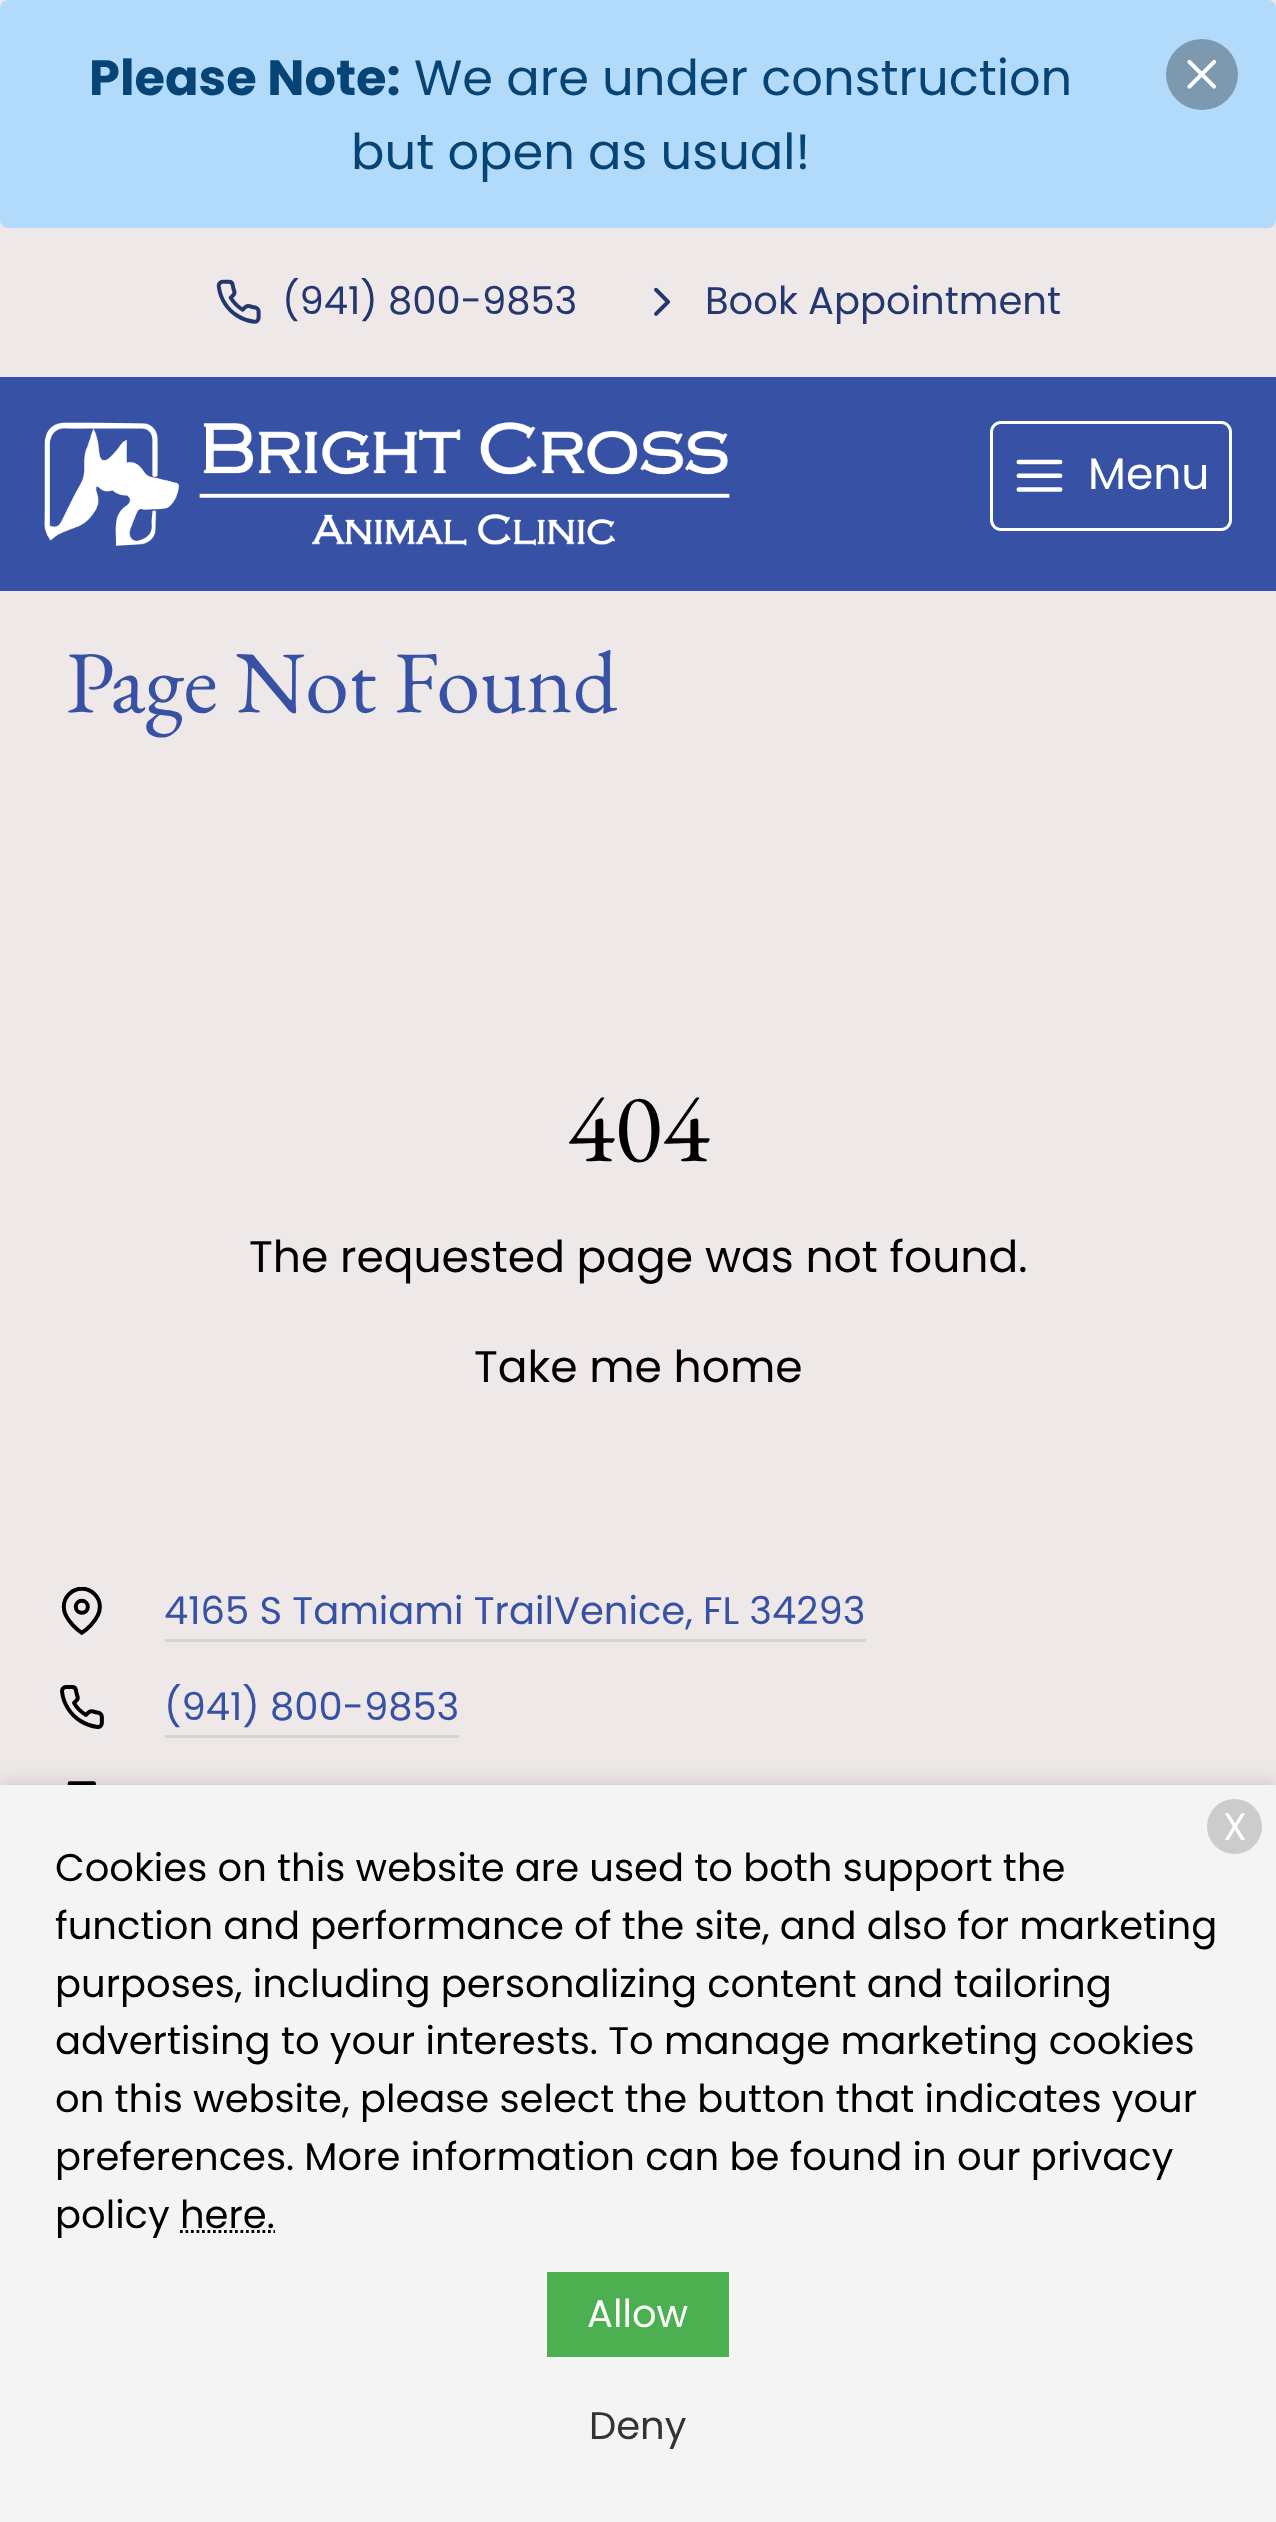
<?xml version="1.0" encoding="UTF-8"?>
<svg xmlns="http://www.w3.org/2000/svg" width="1276" height="2522">
    <defs>
        <filter id="blur1" x="-50%" y="-200%" width="200%" height="500%"><feGaussianBlur stdDeviation="7"/></filter>
    </defs>
    <rect width="100%" height="100%" fill="#EEE9E8"/>
    <rect x="0" y="0" width="1276" height="228" rx="8" fill="#B2DBFB"/>
    <text x="89" y="95" font-family="Poppins" font-size="49.5" font-weight="700" fill="#064475">Please Note:</text>
    <text x="414" y="95" font-family="Poppins" font-size="49.5" fill="#064475">We are under construction</text>
    <text x="351" y="169" font-family="Poppins" font-size="49.5" fill="#064475">but open as usual!</text>
    <rect x="1166" y="39" width="72" height="71" rx="35.5" fill="#7D99B0"/>
    <image x="1187" y="59" width="30" height="30" href="img_01.png"/>
    <image x="216" y="279" width="45" height="45" href="img_02.png"/>
    <text x="282" y="314" font-family="Poppins" font-size="38.5" fill="#25376F">(941) 800-9853</text>
    <image x="654" y="287" width="17" height="29" href="img_03.png"/>
    <text x="705" y="314" font-family="Poppins" font-size="38.5" fill="#25376F">Book Appointment</text>
    <rect x="0" y="377" width="1276" height="214" fill="#3752A4"/>
    <image x="44" y="422" width="686" height="124" href="img_04.png"/>
    <rect x="991.5" y="422.5" width="239" height="107" rx="9.5" fill="none" stroke="#FFFFFF" stroke-width="3"/>
    <image x="1016" y="459" width="47" height="33" href="img_05.png"/>
    <text x="1088" y="489" font-family="Poppins" font-size="44" fill="#FFFFFF">Menu</text>
    <text x="66" y="712" font-family="EB Garamond" font-size="88" fill="#3752A4">Page Not Found</text>
    <text x="567" y="1161" font-family="EB Garamond" font-size="99" fill="#000000">404</text>
    <text x="249" y="1272" font-family="Poppins" font-size="44" fill="#000000">The requested page was not found.</text>
    <text x="474" y="1382" font-family="Poppins" font-size="44" fill="#000000">Take me home</text>
    <image x="61" y="1587" width="41" height="48" href="img_06.png"/>
    <text x="164" y="1624" font-family="Poppins" font-size="38.5" fill="#3752A4">4165 S Tamiami TrailVenice, FL 34293</text>
    <rect x="165" y="1639" width="701" height="3" fill="#D6D2D1"/>
    <image x="60" y="1685" width="44" height="44" href="img_07.png"/>
    <text x="164" y="1720" font-family="Poppins" font-size="38.5" fill="#3752A4">(941) 800-9853</text>
    <rect x="165" y="1735" width="294" height="3" fill="#D6D2D1"/>
    <image x="67" y="1781" width="29" height="4" href="img_08.png"/>
    <rect x="0" y="1779" width="1276" height="740" fill="#000000" fill-opacity="0.1" filter="url(#blur1)"/>
    <rect x="0" y="1785" width="1276" height="737" fill="#F4F4F4"/>
    <circle cx="1234.5" cy="1826.5" r="27.5" fill="#CCCCCC"/>
    <text x="1223" y="1840" font-family="Poppins" font-size="38.5" fill="#FFFFFF">X</text>
    <text font-family="Poppins" font-size="38.5" fill="#000000">
        <tspan x="55" y="1881">Cookies on this website are used to both support the</tspan>
        <tspan x="55" y="1939">function and performance of the site, and also for marketing</tspan>
        <tspan x="55" y="1997">purposes, including personalizing content and tailoring</tspan>
        <tspan x="55" y="2054">advertising to your interests. To manage marketing cookies</tspan>
        <tspan x="55" y="2112">on this website, please select the button that indicates your</tspan>
        <tspan x="55" y="2170">preferences. More information can be found in our privacy</tspan>
        <tspan x="55" y="2228">policy here.</tspan>
    </text>
    <path d="M 180 2231.5 H 275" fill="none" stroke="#000000" stroke-width="2.8" stroke-dasharray="2.75 2.75"/>
    <rect x="547" y="2272" width="182" height="85" fill="#4CAF50"/>
    <text x="587" y="2327" font-family="Poppins" font-size="38.5" fill="#FFFFFF">Allow</text>
    <text x="589" y="2439" font-family="Poppins" font-size="38.5" fill="#333333">Deny</text>
</svg>
